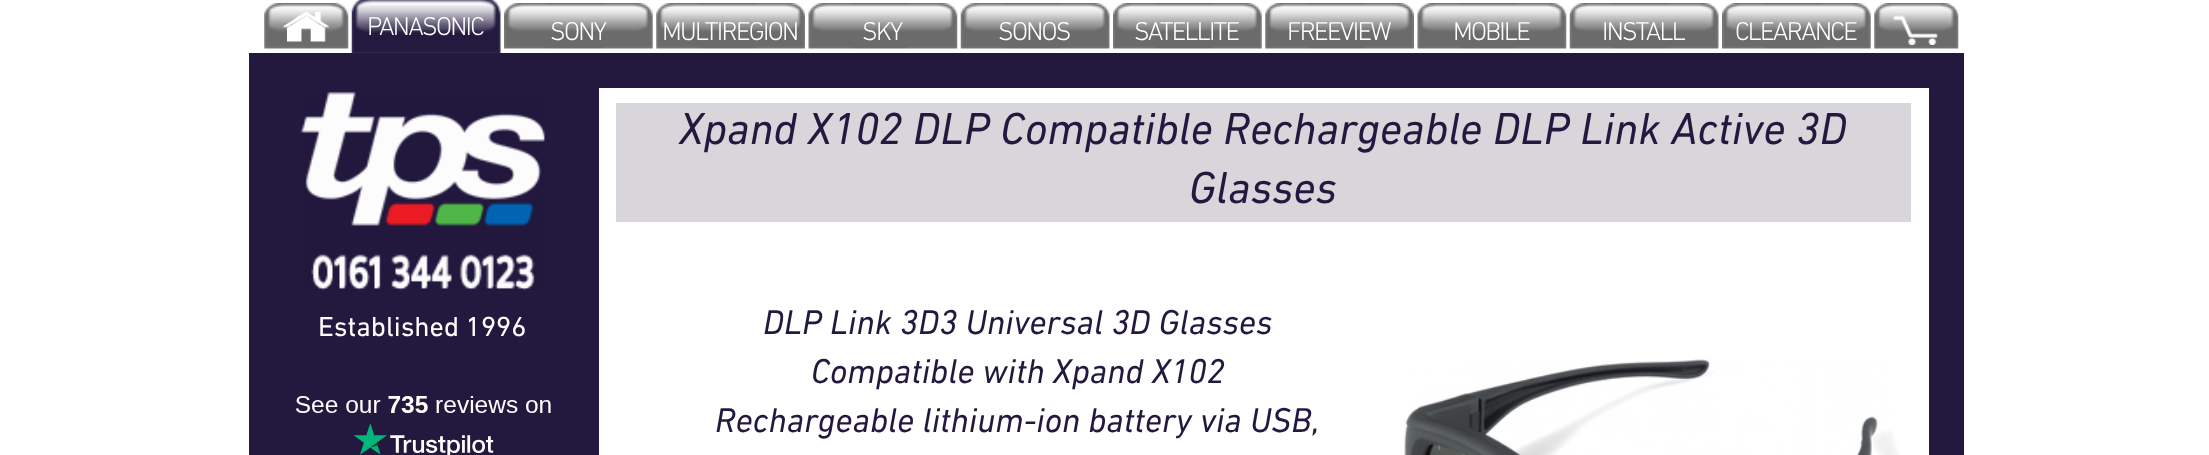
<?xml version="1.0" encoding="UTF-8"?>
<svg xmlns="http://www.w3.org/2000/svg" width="2209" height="455">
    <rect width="100%" height="100%" fill="#FFFFFF"/>
    <image x="264" y="3" width="85" height="46" href="img_01.png"/>
    <image x="283" y="11" width="46" height="31" href="img_02.png"/>
    <image x="351" y="0" width="150" height="53" href="img_03.png"/>
    <text x="367" y="35" font-family="DIN Next" font-size="26.25" font-weight="300" letter-spacing="-1.75" fill="#FFFFFF">PANASONIC</text>
    <image x="504" y="3" width="149" height="46" href="img_04.png"/>
    <text x="550" y="40" font-family="DIN Next" font-size="26.25" font-weight="300" letter-spacing="-1.75" fill="#FFFFFF">SONY</text>
    <image x="656" y="3" width="149" height="46" href="img_05.png"/>
    <text x="662" y="40" font-family="DIN Next" font-size="26.25" font-weight="300" letter-spacing="-1.75" fill="#FFFFFF">MULTIREGION</text>
    <image x="808" y="3" width="150" height="46" href="img_06.png"/>
    <text x="862" y="40" font-family="DIN Next" font-size="26.25" font-weight="300" letter-spacing="-1.75" fill="#FFFFFF">SKY</text>
    <image x="960" y="3" width="150" height="46" href="img_07.png"/>
    <text x="998" y="40" font-family="DIN Next" font-size="26.25" font-weight="300" letter-spacing="-1.75" fill="#FFFFFF">SONOS</text>
    <image x="1113" y="3" width="149" height="46" href="img_08.png"/>
    <text x="1134" y="40" font-family="DIN Next" font-size="26.25" font-weight="300" letter-spacing="-1.75" fill="#FFFFFF">SATELLITE</text>
    <image x="1265" y="3" width="149" height="46" href="img_05.png"/>
    <text x="1287" y="40" font-family="DIN Next" font-size="26.25" font-weight="300" letter-spacing="-1.75" fill="#FFFFFF">FREEVIEW</text>
    <image x="1417" y="3" width="150" height="46" href="img_09.png"/>
    <text x="1453" y="40" font-family="DIN Next" font-size="26.25" font-weight="300" letter-spacing="-1.75" fill="#FFFFFF">MOBILE</text>
    <image x="1569" y="3" width="150" height="46" href="img_07.png"/>
    <text x="1602" y="40" font-family="DIN Next" font-size="26.25" font-weight="300" letter-spacing="-1.75" fill="#FFFFFF">INSTALL</text>
    <image x="1722" y="3" width="149" height="46" href="img_08.png"/>
    <text x="1735" y="40" font-family="DIN Next" font-size="26.25" font-weight="300" letter-spacing="-1.75" fill="#FFFFFF">CLEARANCE</text>
    <image x="1874" y="3" width="85" height="46" href="img_10.png"/>
    <image x="1893" y="15" width="45" height="30" href="img_11.png"/>
    <rect x="249" y="53" width="1715" height="35" fill="#23193F"/>
    <rect x="249" y="88" width="350" height="367" fill="#23193F"/>
    <image x="301" y="92" width="244" height="197" href="img_13.png"/>
    <rect x="316" y="287" width="219" height="2" fill="#23193F" fill-opacity="0.99"/>
    <image x="300" y="91" width="245" height="200" href="img_12.png"/>
    <text x="318" y="336" font-family="DIN Next" font-size="28" fill="#FFFFFF">Established 1996</text>
    <image x="295" y="396" width="256" height="59" href="img_14.png"/>
    <rect x="616" y="103" width="1295" height="119" fill="#D8D5DB"/>
    <text x="679" y="144" font-family="'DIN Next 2'" font-size="45.5" fill="#23193F">Xpand X102 DLP Compatible Rechargeable DLP Link Active 3D</text>
    <text x="1189" y="203" font-family="'DIN Next 2'" font-size="45.5" fill="#23193F">Glasses</text>
    <text x="763" y="334" font-family="'DIN Next 2'" font-size="35" fill="#23193F">DLP Link 3D3 Universal 3D Glasses</text>
    <text x="811" y="383" font-family="'DIN Next 2'" font-size="35" fill="#23193F">Compatible with Xpand X102</text>
    <text x="715" y="432" font-family="'DIN Next 2'" font-size="35" fill="#23193F">Rechargeable lithium-ion battery via USB,</text>
    <image x="1404" y="359" width="496" height="96" href="img_15.png"/>
    <rect x="1929" y="88" width="35" height="367" fill="#23193F"/>
</svg>
